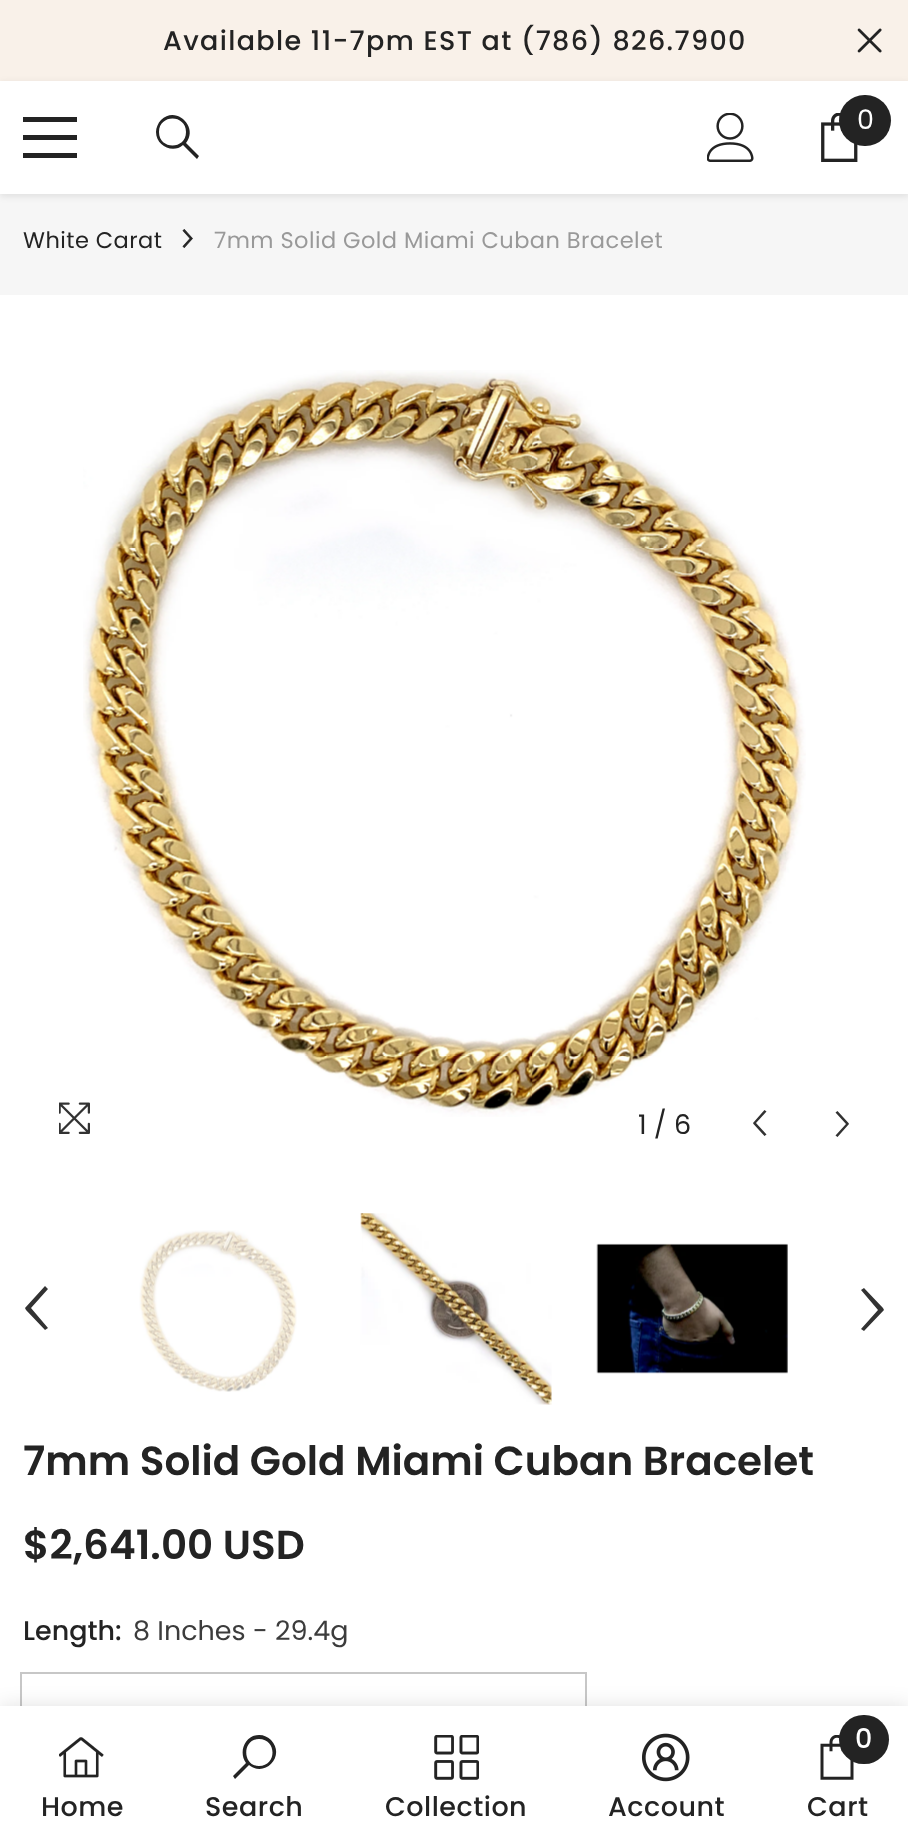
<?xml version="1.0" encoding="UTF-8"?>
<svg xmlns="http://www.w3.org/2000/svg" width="908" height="1843">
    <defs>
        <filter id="blur1" x="-50%" y="-200%" width="200%" height="500%"><feGaussianBlur stdDeviation="3.5"/></filter>
        <filter id="blur2" x="-50%" y="-200%" width="200%" height="500%"><feGaussianBlur stdDeviation="10"/></filter>
    </defs>
    <rect width="100%" height="100%" fill="#FFFFFF"/>
    <rect x="0" y="0" width="908" height="81" fill="#F9F1E9"/>
    <text x="163" y="50" font-family="Poppins" font-size="27" font-weight="500" letter-spacing="1.35" fill="#232323">Available 11-7pm EST at (786) 826.7900</text>
    <image x="857" y="28" width="25" height="25" href="img_01.png"/>
    <rect x="0" y="194" width="908" height="101" fill="#F6F6F6"/>
    <rect x="0" y="83" width="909" height="113" fill="#000000" fill-opacity="0.1" filter="url(#blur1)"/>
    <rect x="0" y="81" width="908" height="113" fill="#FFFFFF"/>
    <rect x="23" y="135" width="54" height="5" fill="#232323"/>
    <rect x="23" y="117" width="54" height="5" fill="#232323"/>
    <rect x="23" y="153" width="54" height="5" fill="#232323"/>
    <path d="M 156 132 C 156 146 173 154 183 145 L 197 159 L 199 156 L 186 143 C 199 127 176 105 161 120 C 158 123 156 128 156 132 Z M 159 132 C 159 114 186 114 186 132 C 186 150 159 150 159 132 Z" fill="#232323"/>
    <image x="707" y="113" width="47" height="49" href="img_02.png"/>
    <image x="821" y="113" width="37" height="49" href="img_03.png"/>
    <rect x="839" y="95" width="52" height="51" rx="25.5" fill="#232323"/>
    <text x="857" y="129" font-family="Poppins" font-size="27" fill="#FFFFFF">0</text>
    <text x="23" y="248" font-family="Poppins" font-size="22.5" letter-spacing="0.45" fill="#232323">White Carat</text>
    <image x="182" y="229" width="11" height="19" href="img_04.png"/>
    <text x="214" y="248" font-family="Poppins" font-size="22.5" letter-spacing="0.45" fill="#999999">7mm Solid Gold Miami Cuban Bracelet</text>
    <image x="83" y="370" width="723" height="747" href="img_06.png"/>
    <image x="59" y="1102" width="31" height="32" href="img_05.png"/>
    <text x="638" y="1134" font-family="Poppins" font-size="27" fill="#232323">1 / 6</text>
    <path d="M 764.5 1136 L 766.5 1134.5 L 756 1123 L 766.5 1111.5 L 764.5 1110 L 753 1123 L 753.5 1124 Z" fill="#323232"/>
    <path d="M 837.5 1111 L 835.5 1112.5 L 846 1124 L 835.5 1135.5 L 837.5 1137 L 849 1124 L 848.5 1123 Z" fill="#323232"/>
    <path d="M 45 1330 L 48 1328 L 31 1308 L 48 1289 L 45 1286 L 25 1308 L 26 1310 Z" fill="#323232"/>
    <image x="139" y="1230" width="158" height="162" href="img_07.png"/>
    <image x="360" y="1213" width="192" height="192" href="img_08.png"/>
    <image x="596" y="1243" width="192" height="131" href="img_09.png"/>
    <path d="M 864 1288 L 861 1290 L 878 1310 L 861 1329 L 864 1331 L 884 1310 L 883 1308 Z" fill="#323232"/>
    <text x="23" y="1475" font-family="Poppins" font-size="40.5" font-weight="600" fill="#232323">7mm Solid Gold Miami Cuban Bracelet</text>
    <text x="23" y="1559" font-family="Poppins" font-size="40.5" font-weight="600" fill="#232323">$2,641.00 USD</text>
    <text x="23" y="1640" font-family="Poppins" font-size="27" font-weight="500" fill="#232323">Length:</text>
    <text x="133" y="1640" font-family="Poppins" font-size="27" fill="#3C3C3C">8 Inches - 29.4g</text>
    <rect x="21" y="1673" width="565" height="104" fill="none" stroke="#C7C7C7" stroke-width="2"/>
    <rect x="0" y="1706" width="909" height="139" fill="#000000" fill-opacity="0.12" filter="url(#blur2)"/>
    <rect x="0" y="1706" width="908" height="137" fill="#FFFFFF"/>
    <image x="59" y="1737" width="45" height="41" href="img_10.png"/>
    <text x="41" y="1816" font-family="Poppins" font-size="27" font-weight="500" letter-spacing="0.5" fill="#232323">Home</text>
    <path d="M 259 1735 C 245 1735 238 1752 246 1763 L 233 1776 L 235 1779 L 249 1765 C 265 1778 286 1756 271 1740 C 268 1737 264 1735 259 1735 Z M 259 1739 C 277 1739 277 1766 259 1766 C 242 1766 242 1739 259 1739 Z" fill="#232323"/>
    <text x="205" y="1816" font-family="Poppins" font-size="27" font-weight="500" letter-spacing="0.5" fill="#232323">Search</text>
    <image x="434" y="1735" width="45" height="45" href="img_11.png"/>
    <text x="385" y="1816" font-family="Poppins" font-size="27" font-weight="500" letter-spacing="0.5" fill="#232323">Collection</text>
    <image x="642" y="1733" width="48" height="49" href="img_12.png"/>
    <text x="608" y="1816" font-family="Poppins" font-size="27" font-weight="500" letter-spacing="0.5" fill="#232323">Account</text>
    <image x="820" y="1735" width="34" height="45" href="img_13.png"/>
    <rect x="839" y="1715" width="50" height="49" rx="24.5" fill="#232323"/>
    <text x="855" y="1748" font-family="Poppins" font-size="27" font-weight="500" fill="#FFFFFF">0</text>
    <text x="807" y="1816" font-family="Poppins" font-size="27" font-weight="500" letter-spacing="0.5" fill="#232323">Cart</text>
</svg>
